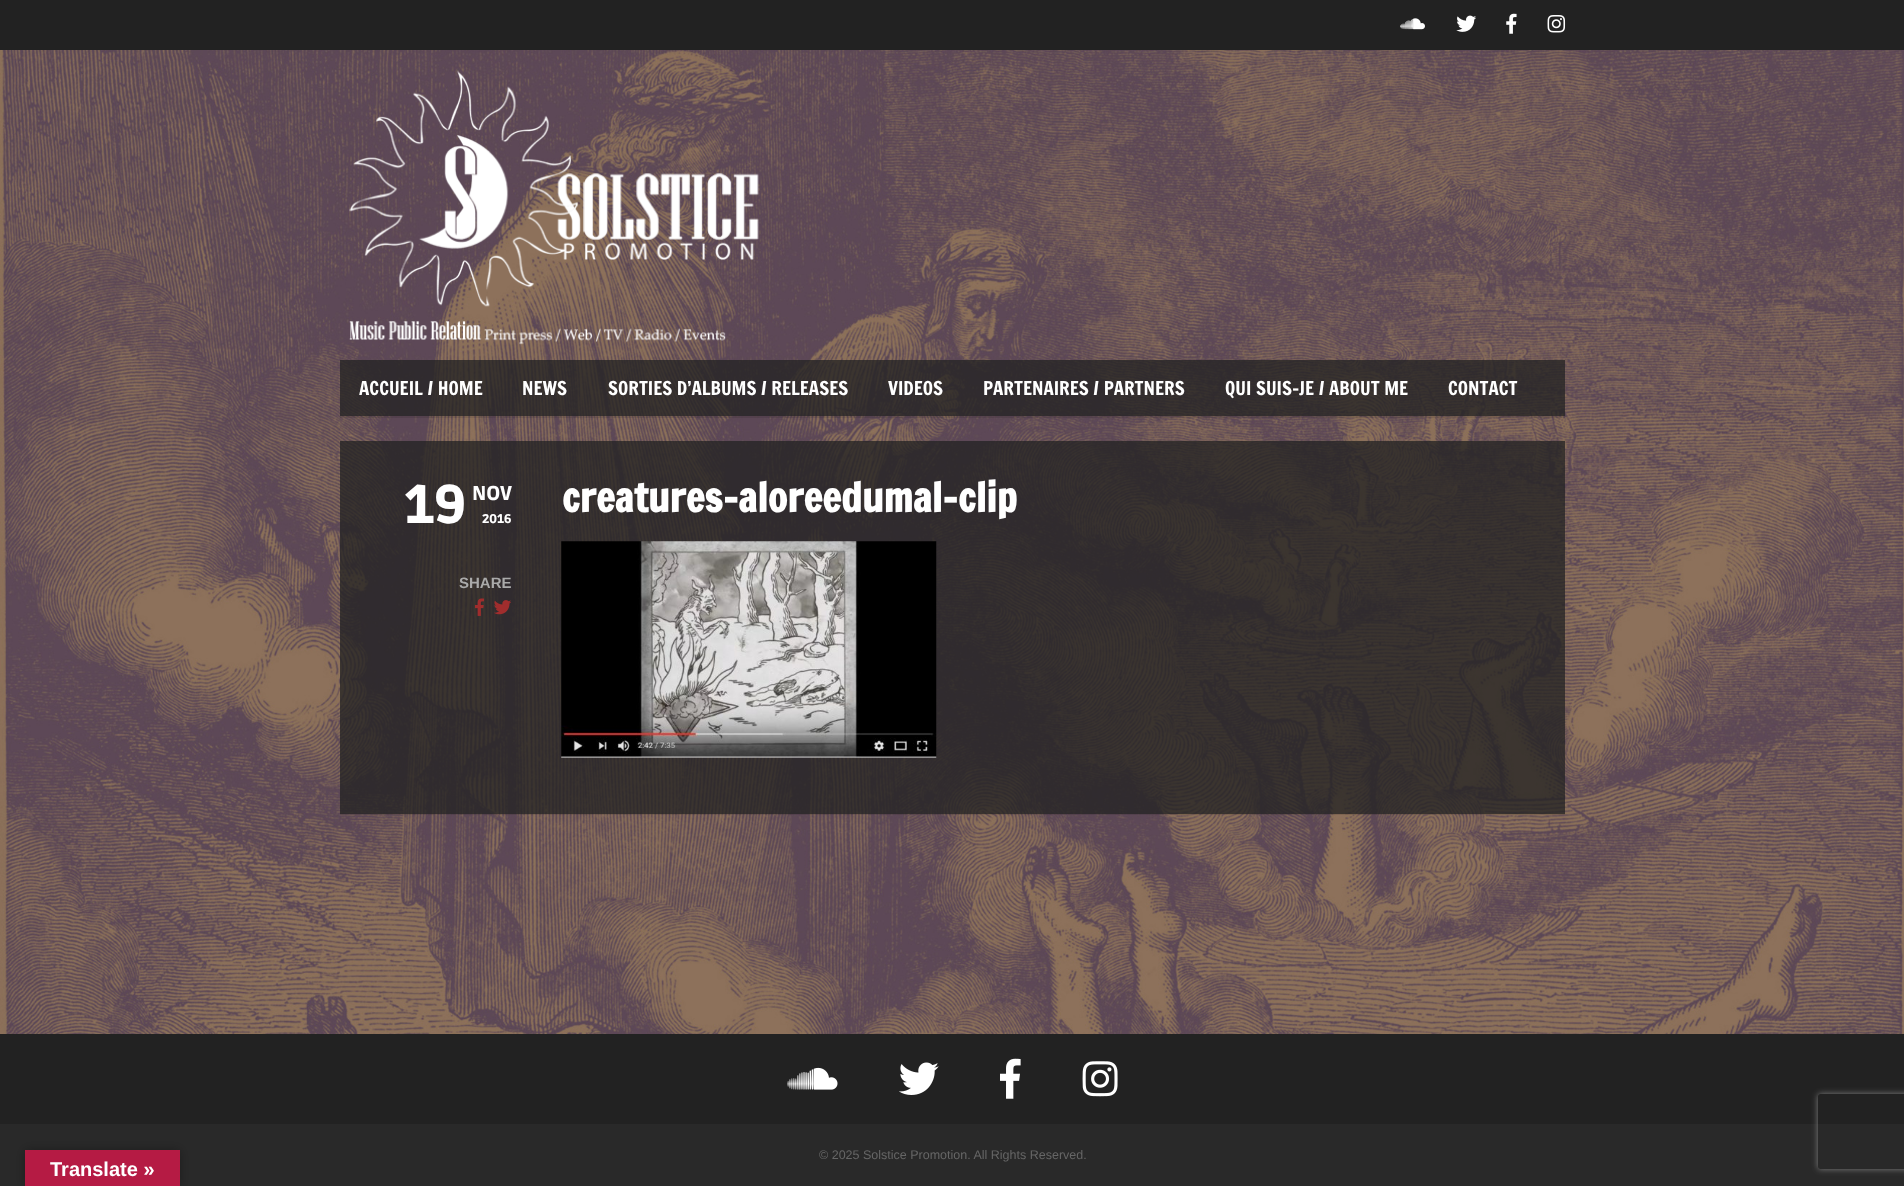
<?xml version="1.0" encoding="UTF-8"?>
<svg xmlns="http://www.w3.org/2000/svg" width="1904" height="1186">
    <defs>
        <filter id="blur1" x="-50%" y="-200%" width="200%" height="500%"><feGaussianBlur stdDeviation="5.5"/></filter>
        <clipPath id="clip1"><rect x="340" y="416" width="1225" height="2"/></clipPath>
        <filter id="blur2" x="-50%" y="-200%" width="200%" height="500%"><feGaussianBlur stdDeviation="0.5"/></filter>
        <clipPath id="clip2"><path d="M 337 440 H 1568 V 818 H 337 Z M 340 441 H 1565 V 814 H 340 Z" clip-rule="evenodd"/></clipPath>
        <clipPath id="clip3"><path d="M 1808 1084 H 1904 V 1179 H 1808 Z M 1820.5 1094 H 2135.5 C 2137 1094 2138 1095 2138 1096.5 V 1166.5 C 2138 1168 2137 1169 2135.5 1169 H 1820.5 C 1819 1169 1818 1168 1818 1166.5 V 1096.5 C 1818 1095 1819 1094 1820.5 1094 Z" clip-rule="evenodd"/></clipPath>
        <filter id="blur3" x="-50%" y="-200%" width="200%" height="500%"><feGaussianBlur stdDeviation="3"/></filter>
    </defs>
    <rect width="100%" height="100%" fill="#FFFFFF"/>
    <image x="0" y="50" width="1904" height="984" href="img_01.png"/>
    <rect x="0" y="1124" width="1904" height="62" fill="#292929"/>
    <rect x="25" y="1150" width="155" height="36" fill="#000000" fill-opacity="0.3" filter="url(#blur1)"/>
    <rect x="25" y="1150" width="155" height="36" fill="#B51B44"/>
    <text x="50" y="1176" font-family="Liberation Sans" font-size="20" font-weight="700" fill="#FFFFFF">Translate »</text>
    <rect x="0" y="0" width="1904" height="50" fill="#222222"/>
    <image x="1400" y="18" width="25" height="12" href="img_02.png"/>
    <image x="1456" y="15" width="21" height="17" href="img_03.png"/>
    <image x="1506" y="13" width="11" height="21" href="img_04.png"/>
    <image x="1547" y="15" width="19" height="18" href="img_05.png"/>
    <image x="349" y="70" width="410" height="275" href="img_06.png"/>
    <g clip-path="url(#clip1)">
        <rect x="340" y="361" width="1225" height="57" fill="#000000" fill-opacity="0.1" filter="url(#blur2)"/>
    </g>
    <rect x="340" y="360" width="1225" height="56" fill="#222222" fill-opacity="0.76"/>
    <text x="359" y="395" font-family="Francois One" font-size="18.75" fill="#FFFFFF">ACCUEIL / HOME</text>
    <text x="522" y="395" font-family="Francois One" font-size="18.75" fill="#FFFFFF">NEWS</text>
    <text x="608" y="395" font-family="Francois One" font-size="18.75" fill="#FFFFFF">SORTIES D’ALBUMS / RELEASES</text>
    <text x="888" y="395" font-family="Francois One" font-size="18.75" fill="#FFFFFF">VIDEOS</text>
    <text x="983" y="395" font-family="Francois One" font-size="18.75" fill="#FFFFFF">PARTENAIRES / PARTNERS</text>
    <text x="1225" y="395" font-family="Francois One" font-size="18.75" fill="#FFFFFF">QUI SUIS-JE / ABOUT ME</text>
    <text x="1448" y="395" font-family="Francois One" font-size="18.75" fill="#FFFFFF">CONTACT</text>
    <g clip-path="url(#clip2)">
        <rect x="340" y="443" width="1225" height="372" fill="#000000" fill-opacity="0.1" filter="url(#blur2)"/>
    </g>
    <rect x="340" y="441" width="1225" height="373" fill="#222222" fill-opacity="0.76"/>
    <text x="404" y="523" font-family="Ruda" font-size="54" font-weight="900" fill="#FFFFFF">19</text>
    <text x="472" y="500" font-family="Ruda" font-size="20" font-weight="900" fill="#FFFFFF">NOV</text>
    <text x="482" y="523" font-family="Ruda" font-size="12.5" font-weight="900" fill="#FFFFFF">2016</text>
    <text x="459" y="588" font-family="Liberation Sans" font-size="15" font-weight="700" fill="#AAAAAA">SHARE</text>
    <image x="475" y="598" width="9" height="18" href="img_07.png"/>
    <image x="494" y="600" width="17" height="15" href="img_08.png"/>
    <text x="562" y="512" font-family="Francois One" font-size="40" font-weight="700" fill="#FFFFFF">creatures-aloreedumal-clip</text>
    <image x="561" y="541" width="376" height="217" href="img_09.png"/>
    <rect x="0" y="1034" width="1904" height="90" fill="#222222"/>
    <image x="787" y="1067" width="51" height="23" href="img_10.png"/>
    <image x="899" y="1062" width="40" height="33" href="img_11.png"/>
    <image x="1000" y="1058" width="21" height="41" href="img_12.png"/>
    <image x="1082" y="1061" width="36" height="36" href="img_13.png"/>
    <text x="819" y="1159" font-family="Liberation Sans" font-size="12.5" fill="#666666">© 2025 Solstice Promotion. All Rights Reserved.</text>
    <g clip-path="url(#clip3)">
        <rect x="1818" y="1094" width="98" height="75" rx="2.5" fill="#808080" filter="url(#blur3)"/>
    </g>
</svg>
